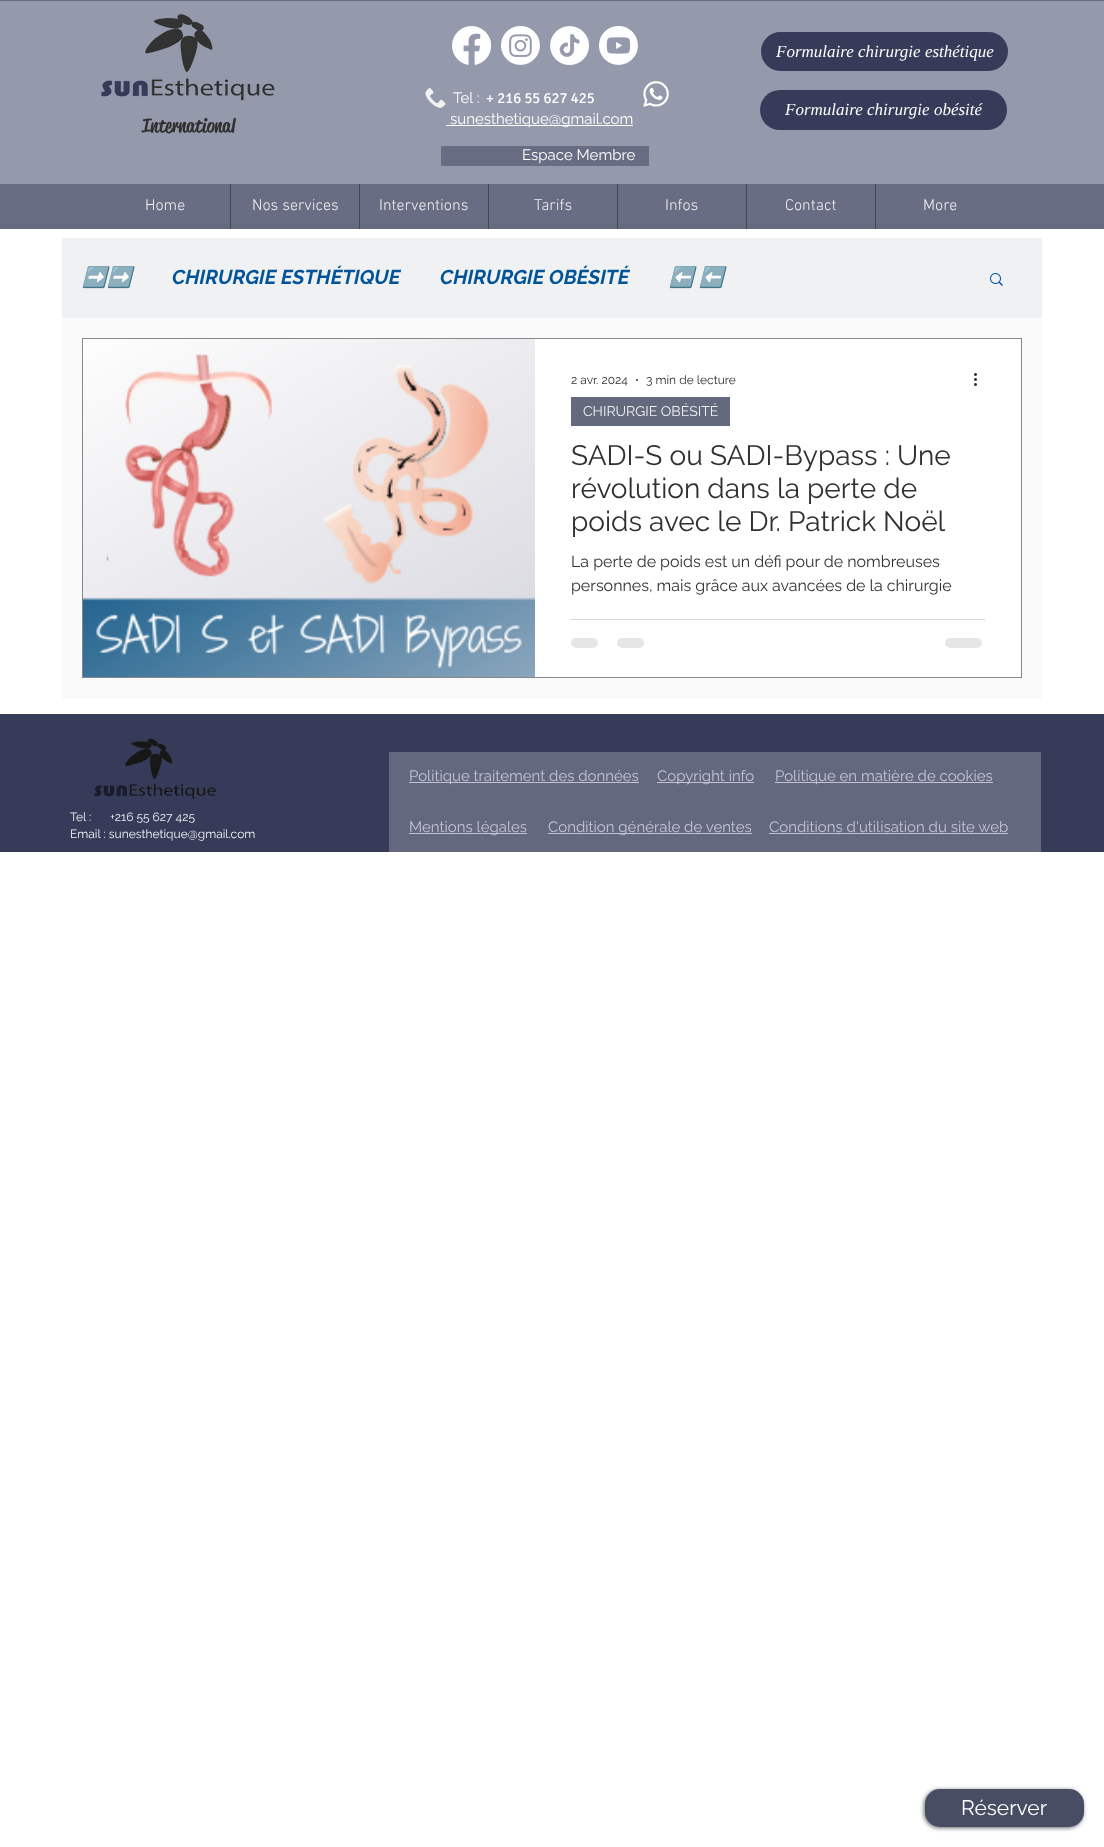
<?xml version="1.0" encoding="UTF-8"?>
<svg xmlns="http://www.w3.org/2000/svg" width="1104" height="1847">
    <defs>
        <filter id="blur1" x="-50%" y="-200%" width="200%" height="500%"><feGaussianBlur stdDeviation="2"/></filter>
    </defs>
    <rect width="100%" height="100%" fill="#FFFFFF"/>
    <rect x="0" y="0" width="1104" height="224" fill="#696D83"/>
    <rect x="0" y="224" width="1104" height="5" fill="#646A7D"/>
    <rect x="0" y="1" width="1104" height="183" fill="#9599AC"/>
    <image x="101" y="14" width="174" height="87" href="img_01.png"/>
    <image x="452" y="26" width="39" height="39" href="img_02.png"/>
    <image x="501" y="26" width="39" height="39" href="img_03.png"/>
    <image x="550" y="26" width="39" height="39" href="img_04.png"/>
    <image x="599" y="26" width="39" height="39" href="img_05.png"/>
    <rect x="761" y="32" width="247" height="39" rx="19.5" fill="#363B59"/>
    <text x="776" y="57" font-family="Liberation Serif" font-size="17" font-style="italic" fill="#FFFFFF">Formulaire chirurgie esthétique</text>
    <image x="425" y="88" width="21" height="20" href="img_06.png"/>
    <text x="453" y="103" font-family="Raleway" font-size="15" fill="#FFFFFF">Tel :</text>
    <text x="486" y="103" font-family="Signika" font-size="15" fill="#FFFFFF">+ 216 55 627 425</text>
    <rect x="446" y="125" width="187" height="1" fill="#FFFFFF"/>
    <text x="450" y="124" font-family="Raleway" font-size="15" fill="#FFFFFF">sunesthetique@gmail.com</text>
    <image x="643" y="81" width="26" height="26" href="img_07.png"/>
    <rect x="760" y="90" width="247" height="40" rx="20" fill="#363B59"/>
    <text x="785" y="115" font-family="Liberation Serif" font-size="17" font-style="italic" fill="#FFFFFF">Formulaire chirurgie obésité</text>
    <text x="142" y="132" font-family="'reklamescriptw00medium'" font-size="19" font-weight="500" fill="#303030">International</text>
    <rect x="441" y="146" width="208" height="20" fill="#696D83"/>
    <text x="522" y="160" font-family="Raleway" font-size="15" fill="#FFFFFF">Espace Membre</text>
    <text x="145" y="210" font-family="'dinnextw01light'" font-size="16" font-weight="300" fill="#F0F1F2">Home</text>
    <rect x="230" y="184" width="1" height="45" fill="#424653"/>
    <text x="252" y="210" font-family="'dinnextw01light'" font-size="16" font-weight="300" fill="#F0F1F2">Nos services</text>
    <rect x="359" y="184" width="1" height="45" fill="#424653"/>
    <text x="379" y="210" font-family="'dinnextw01light'" font-size="16" font-weight="300" fill="#F0F1F2">Interventions</text>
    <rect x="488" y="184" width="1" height="45" fill="#424653"/>
    <text x="534" y="210" font-family="'dinnextw01light'" font-size="16" font-weight="300" fill="#F0F1F2">Tarifs</text>
    <rect x="617" y="184" width="1" height="45" fill="#424653"/>
    <text x="665" y="210" font-family="'dinnextw01light'" font-size="16" font-weight="300" fill="#F0F1F2">Infos</text>
    <rect x="746" y="184" width="1" height="45" fill="#424653"/>
    <text x="785" y="210" font-family="'dinnextw01light'" font-size="16" font-weight="300" fill="#F0F1F2">Contact</text>
    <rect x="875" y="184" width="1" height="45" fill="#424653"/>
    <text x="923" y="210" font-family="'dinnextw01light'" font-size="16" font-weight="300" fill="#F0F1F2">More</text>
    <rect x="62" y="318" width="980" height="381" fill="#FAFAFB"/>
    <rect x="62" y="238" width="980" height="80" fill="#F0F1F2"/>
    <text x="82" y="284" font-family="Noto Color Emoji" font-size="20" font-weight="700" font-style="italic" fill="#025499">➡️➡️</text>
    <text x="172" y="284" font-family="Raleway" font-size="20" font-weight="700" font-style="italic" fill="#025499">CHIRURGIE ESTHÉTIQUE</text>
    <text x="440" y="284" font-family="Raleway" font-size="20" font-weight="700" font-style="italic" fill="#025499">CHIRURGIE OBÉSITÉ</text>
    <text x="669" y="284" font-family="Noto Color Emoji" font-size="20" font-weight="700" font-style="italic" fill="#025499">⬅️</text>
    <text x="699" y="284" font-family="Noto Color Emoji" font-size="20" font-weight="700" font-style="italic" fill="#025499">⬅️</text>
    <image x="990" y="273" width="13" height="13" href="img_08.png"/>
    <rect x="82.5" y="338.5" width="939" height="339" fill="none" stroke="#878788"/>
    <image x="83" y="339" width="452" height="338" href="img_09.png"/>
    <rect x="535" y="339" width="486" height="338" fill="#FFFFFF"/>
    <text x="571" y="384" font-family="Raleway" font-size="12" fill="#303030">2 avr. 2024</text>
    <circle cx="637" cy="380" r="1" fill="#303030"/>
    <text x="646" y="384" font-family="Raleway" font-size="12" fill="#303030">3 min de lecture</text>
    <image x="974" y="373" width="3" height="13" href="img_10.png"/>
    <rect x="571" y="397" width="159" height="29" fill="#646A7D"/>
    <text x="583" y="416" font-family="Raleway" font-size="14" fill="#F0F1F2">CHIRURGIE OBÉSITÉ</text>
    <text font-family="Raleway" font-size="28" fill="#303030">
        <tspan x="571" y="465">SADI-S ou SADI-Bypass : Une</tspan>
        <tspan x="571" y="498">révolution dans la perte de</tspan>
        <tspan x="571" y="531">poids avec le Dr. Patrick Noël</tspan>
    </text>
    <text font-family="Raleway" font-size="16" fill="#303030">
        <tspan x="571" y="567">La perte de poids est un défi pour de nombreuses</tspan>
        <tspan x="571" y="591">personnes, mais grâce aux avancées de la chirurgie</tspan>
    </text>
    <rect x="571" y="619" width="414" height="1" fill="#D6D6D6"/>
    <rect x="571" y="638" width="27" height="10" rx="5" fill="#E6E6E6"/>
    <rect x="617" y="638" width="27" height="10" rx="5" fill="#E6E6E6"/>
    <rect x="945" y="638" width="37" height="10" rx="5" fill="#E6E6E6"/>
    <rect x="0" y="714" width="1104" height="138" fill="#363B59"/>
    <image x="94" y="738" width="122" height="61" href="img_11.png"/>
    <text x="70" y="821" font-family="Raleway" font-size="12" fill="#F0F1F2">Tel :</text>
    <text x="110" y="821" font-family="Raleway" font-size="12" fill="#F0F1F2">+216 55 627 425</text>
    <text x="70" y="838" font-family="Raleway" font-size="12" fill="#F0F1F2">Email : sunesthetique@gmail.com</text>
    <rect x="389" y="752" width="652" height="100" fill="#64687F"/>
    <rect x="409" y="782" width="230" height="1" fill="#C1C4D5"/>
    <text x="409" y="781" font-family="Raleway" font-size="15" fill="#C1C4D5">Politique traitement des données</text>
    <rect x="657" y="782" width="97" height="1" fill="#C1C4D5"/>
    <text x="657" y="781" font-family="Raleway" font-size="15" fill="#C1C4D5">Copyright info</text>
    <rect x="775" y="782" width="218" height="1" fill="#C1C4D5"/>
    <text x="775" y="781" font-family="Raleway" font-size="15" fill="#C1C4D5">Politique en matière de cookies</text>
    <rect x="409" y="833" width="118" height="1" fill="#C1C4D5"/>
    <text x="409" y="832" font-family="Raleway" font-size="15" fill="#C1C4D5">Mentions légales</text>
    <rect x="548" y="833" width="204" height="1" fill="#C1C4D5"/>
    <text x="548" y="832" font-family="Raleway" font-size="15" fill="#C1C4D5">Condition générale de ventes</text>
    <text x="769" y="832" font-family="Raleway" font-size="15" fill="#C1C4D5">Conditions d'utilisation du site web</text>
    <rect x="769" y="833" width="239" height="1" fill="#C1C4D5"/>
    <rect x="924" y="1790" width="159" height="38" rx="15" fill="#000000" fill-opacity="0.6" filter="url(#blur1)"/>
    <rect x="925" y="1789" width="159" height="38" rx="15" fill="#474D62"/>
    <text x="961" y="1815" font-family="Raleway" font-size="21" fill="#FFFFFF">Réserver</text>
</svg>
